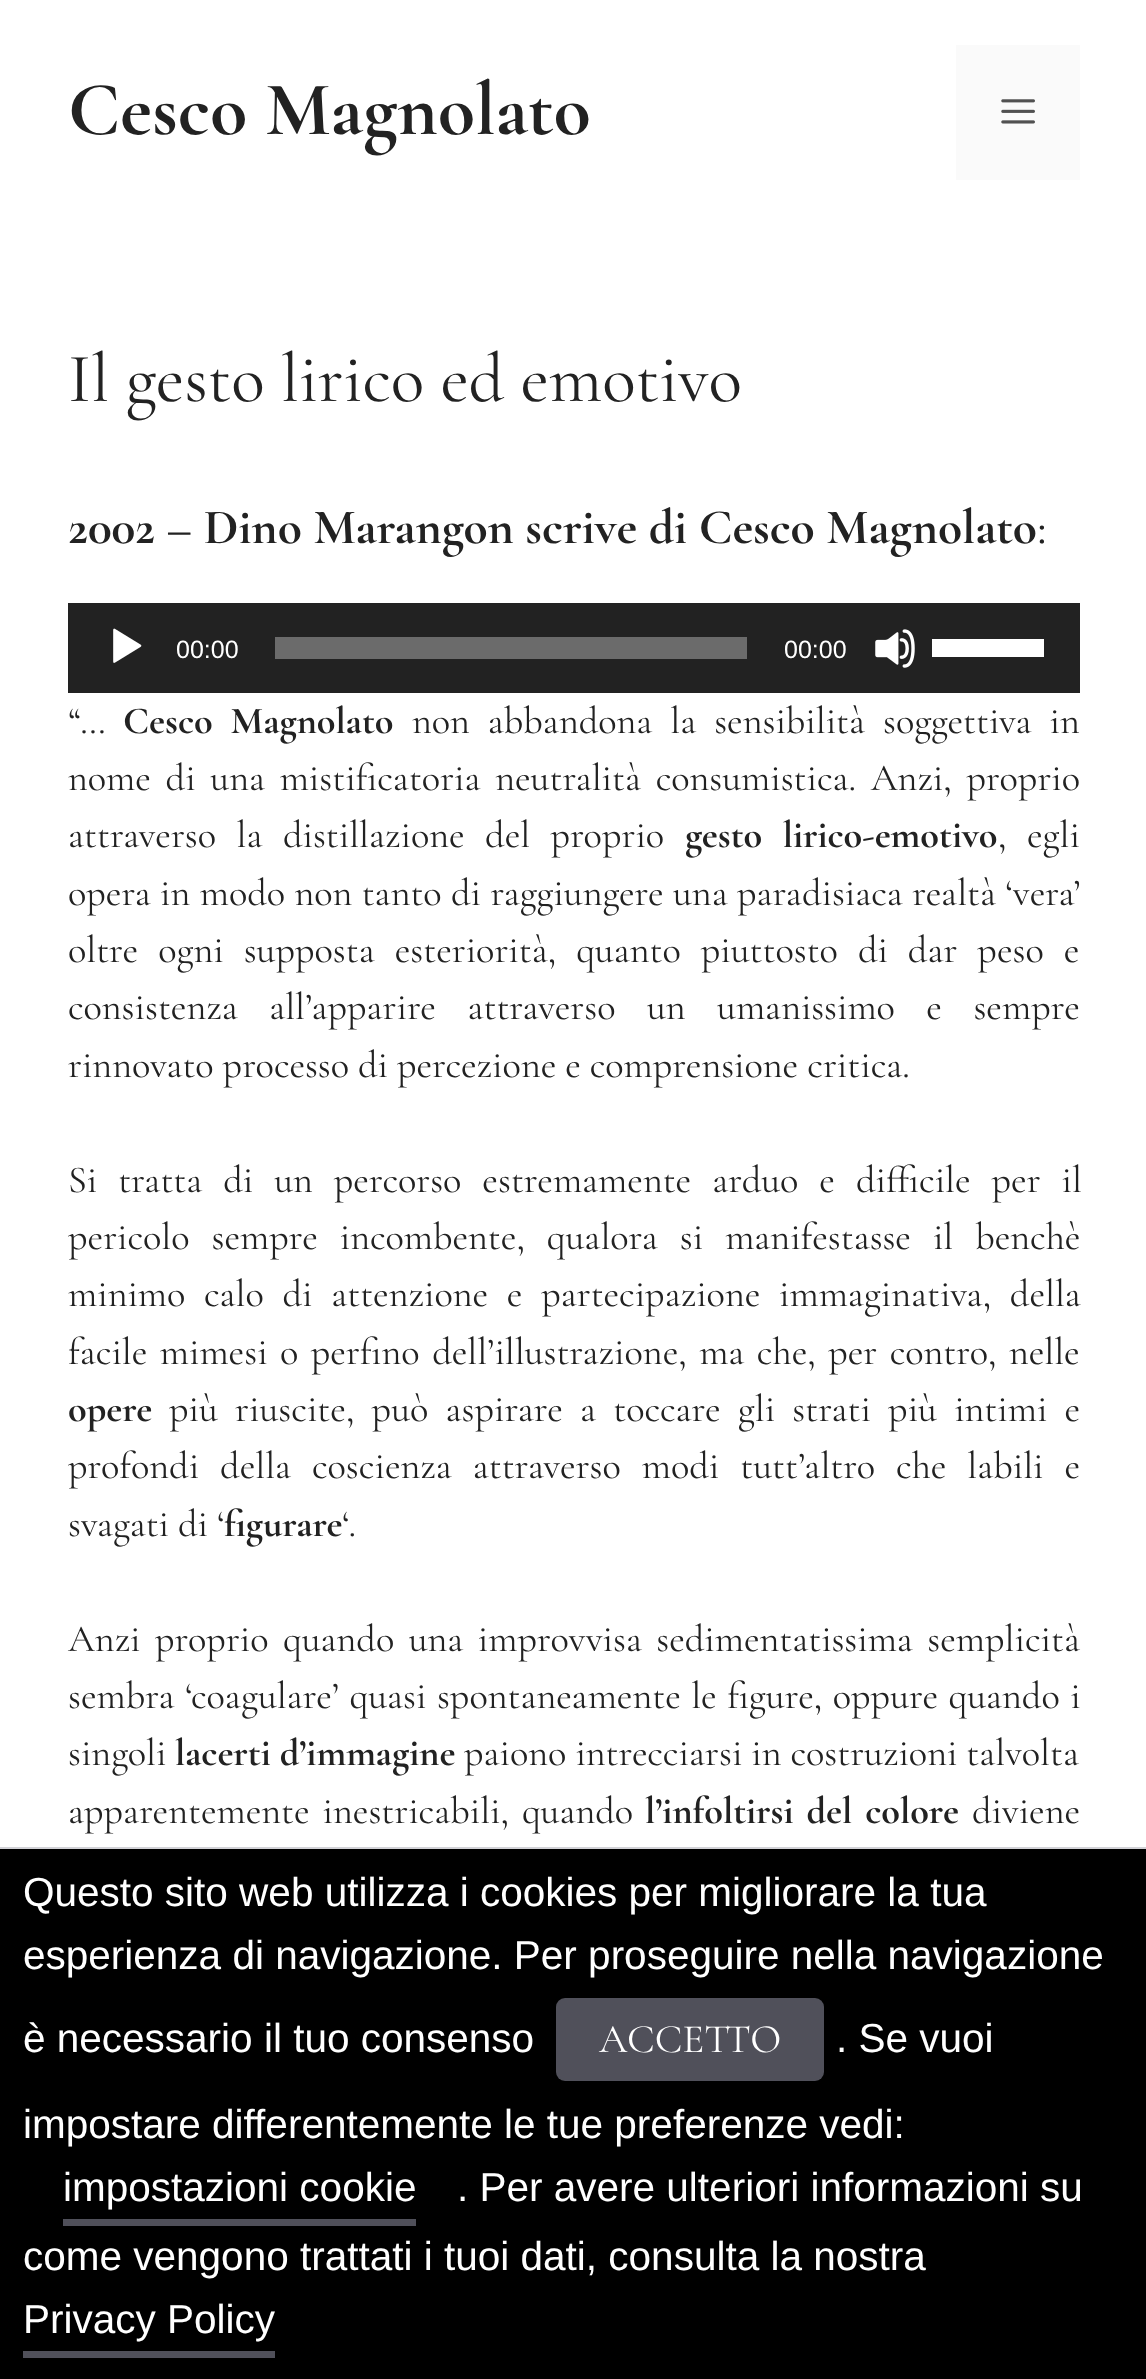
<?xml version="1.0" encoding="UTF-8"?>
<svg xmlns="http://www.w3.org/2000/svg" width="1146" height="2379">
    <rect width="100%" height="100%" fill="#FFFFFF"/>
    <text x="68" y="134" font-family="Cormorant Garamond" font-size="76.5" font-weight="700" fill="#222222">Cesco Magnolato</text>
    <rect x="956" y="45" width="124" height="135" fill="#FAFAFA"/>
    <image x="1001" y="99" width="34" height="25" href="img_01.png"/>
    <text x="68" y="401" font-family="Cormorant Garamond" font-size="69.75" fill="#222222">Il gesto lirico ed emotivo</text>
    <text x="68" y="543" font-family="Cormorant Garamond" font-size="49.5" font-weight="700" fill="#222222">2002 – Dino Marangon scrive di Cesco Magnolato</text>
    <text x="1037" y="543" font-family="Cormorant Garamond" font-size="49.5" fill="#222222">:</text>
    <rect x="68" y="603" width="1012" height="90" fill="#222222"/>
    <image x="113" y="628" width="29" height="35" href="img_02.png"/>
    <text x="176" y="658" font-family="Liberation Sans" font-size="25" fill="#FFFFFF">00:00</text>
    <rect x="275" y="637" width="472" height="22" fill="#6B6B6B"/>
    <text x="784" y="658" font-family="Liberation Sans" font-size="25" fill="#FFFFFF">00:00</text>
    <image x="875" y="629" width="40" height="39" href="img_03.png"/>
    <rect x="932" y="639" width="112" height="18" fill="#FFFFFF"/>
    <text x="68" y="733" font-family="Cormorant Garamond" font-size="38.25" fill="#222222">“…</text>
    <text x="123" y="733" word-spacing="9" font-family="Cormorant Garamond" font-size="38.25" font-weight="700" fill="#222222">Cesco Magnolato</text>
    <text x="412" y="733" word-spacing="9" font-family="Cormorant Garamond" font-size="38.25" fill="#222222">non abbandona la sensibilità soggettiva in</text>
    <text font-family="Cormorant Garamond" font-size="38.25" fill="#222222">
        <tspan x="68" y="790" word-spacing="5.75">nome di una mistificatoria neutralità consumistica. Anzi, proprio</tspan>
        <tspan x="68" y="847" word-spacing="11.5">attraverso la distillazione del proprio</tspan>
    </text>
    <text x="685" y="847" word-spacing="11.5" font-family="Cormorant Garamond" font-size="38.25" font-weight="700" fill="#222222">gesto lirico-emotivo</text>
    <text x="998" y="847" word-spacing="11.5" font-family="Cormorant Garamond" font-size="38.25" fill="#222222">, egli</text>
    <text font-family="Cormorant Garamond" font-size="38.25" fill="#222222">
        <tspan x="68" y="905" word-spacing="0.4">opera in modo non tanto di raggiungere una paradisiaca realtà ‘vera’</tspan>
        <tspan x="68" y="962" word-spacing="11">oltre ogni supposta esteriorità, quanto piuttosto di dar peso e</tspan>
        <tspan x="68" y="1019" word-spacing="22.5">consistenza all’apparire attraverso un umanissimo e sempre</tspan>
        <tspan x="68" y="1077">rinnovato processo di percezione e comprensione critica.</tspan>
    </text>
    <text font-family="Cormorant Garamond" font-size="38.25" fill="#222222">
        <tspan x="68" y="1192" word-spacing="12">Si tratta di un percorso estremamente arduo e difficile per il</tspan>
        <tspan x="68" y="1249" word-spacing="13">pericolo sempre incombente, qualora si manifestasse il benchè</tspan>
        <tspan x="68" y="1306" word-spacing="9.75">minimo calo di attenzione e partecipazione immaginativa, della</tspan>
        <tspan x="68" y="1364" word-spacing="3.5">facile mimesi o perfino dell’illustrazione, ma che, per contro, nelle</tspan>
    </text>
    <text x="68" y="1421" font-family="Cormorant Garamond" font-size="38.25" font-weight="700" fill="#222222">opere</text>
    <text x="169" y="1421" word-spacing="8.25" font-family="Cormorant Garamond" font-size="38.25" fill="#222222">più riuscite, può aspirare a toccare gli strati più intimi e</text>
    <text font-family="Cormorant Garamond" font-size="38.25" fill="#222222">
        <tspan x="68" y="1478" word-spacing="12">profondi della coscienza attraverso modi tutt’altro che labili e</tspan>
        <tspan x="68" y="1536">svagati di ‘</tspan>
    </text>
    <text x="224" y="1536" font-family="Cormorant Garamond" font-size="38.25" font-weight="700" fill="#222222">figurare</text>
    <text x="342" y="1536" font-family="Cormorant Garamond" font-size="38.25" fill="#222222">‘.</text>
    <text font-family="Cormorant Garamond" font-size="38.25" fill="#222222">
        <tspan x="68" y="1651" word-spacing="5.5">Anzi proprio quando una improvvisa sedimentatissima semplicità</tspan>
        <tspan x="68" y="1708" word-spacing="1.5">sembra ‘coagulare’ quasi spontaneamente le figure, oppure quando i</tspan>
        <tspan x="68" y="1765">singoli</tspan>
    </text>
    <text x="175" y="1765" font-family="Cormorant Garamond" font-size="38.25" font-weight="700" fill="#222222">lacerti d’immagine</text>
    <text x="464" y="1765" font-family="Cormorant Garamond" font-size="38.25" fill="#222222">paiono intrecciarsi in costruzioni talvolta</text>
    <text x="68" y="1823" word-spacing="4" font-family="Cormorant Garamond" font-size="38.25" fill="#222222">apparentemente inestricabili, quando</text>
    <text x="645" y="1823" word-spacing="4" font-family="Cormorant Garamond" font-size="38.25" font-weight="700" fill="#222222">l’infoltirsi del colore</text>
    <text x="972" y="1823" font-family="Cormorant Garamond" font-size="38.25" fill="#222222">diviene</text>
    <rect x="0" y="1849" width="1146" height="530" fill="#000000"/>
    <rect x="0" y="1847" width="1146" height="2" fill="#D2D2D7"/>
    <text font-family="Liberation Sans" font-size="40.5" fill="#FFFFFF">
        <tspan x="23" y="1906">Questo sito web utilizza i cookies per migliorare la tua</tspan>
        <tspan x="23" y="1969">esperienza di navigazione. Per proseguire nella navigazione</tspan>
    </text>
    <text x="23" y="2052" font-family="Liberation Sans" font-size="40.5" fill="#FFFFFF">è necessario il tuo consenso</text>
    <rect x="556" y="1998" width="268" height="83" rx="9" fill="#50505A"/>
    <text x="599" y="2052" font-family="Cormorant Garamond" font-size="40.5" fill="#FFFFFF">ACCETTO</text>
    <text x="836" y="2052" font-family="Liberation Sans" font-size="40.5" fill="#FFFFFF">. Se vuoi</text>
    <text x="23" y="2138" font-family="Liberation Sans" font-size="40.5" fill="#FFFFFF">impostare differentemente le tue preferenze vedi:</text>
    <rect x="63" y="2219" width="353" height="7" fill="#50505A"/>
    <text x="63" y="2201" font-family="Liberation Sans" font-size="40.5" fill="#FFFFFF">impostazioni cookie</text>
    <text x="457" y="2201" font-family="Liberation Sans" font-size="40.5" fill="#FFFFFF">. Per avere ulteriori informazioni su</text>
    <text x="23" y="2270" font-family="Liberation Sans" font-size="40.5" fill="#FFFFFF">come vengono trattati i tuoi dati, consulta la nostra</text>
    <rect x="23" y="2351" width="252" height="7" fill="#50505A"/>
    <text x="23" y="2333" font-family="Liberation Sans" font-size="40.5" fill="#FFFFFF">Privacy Policy</text>
</svg>
